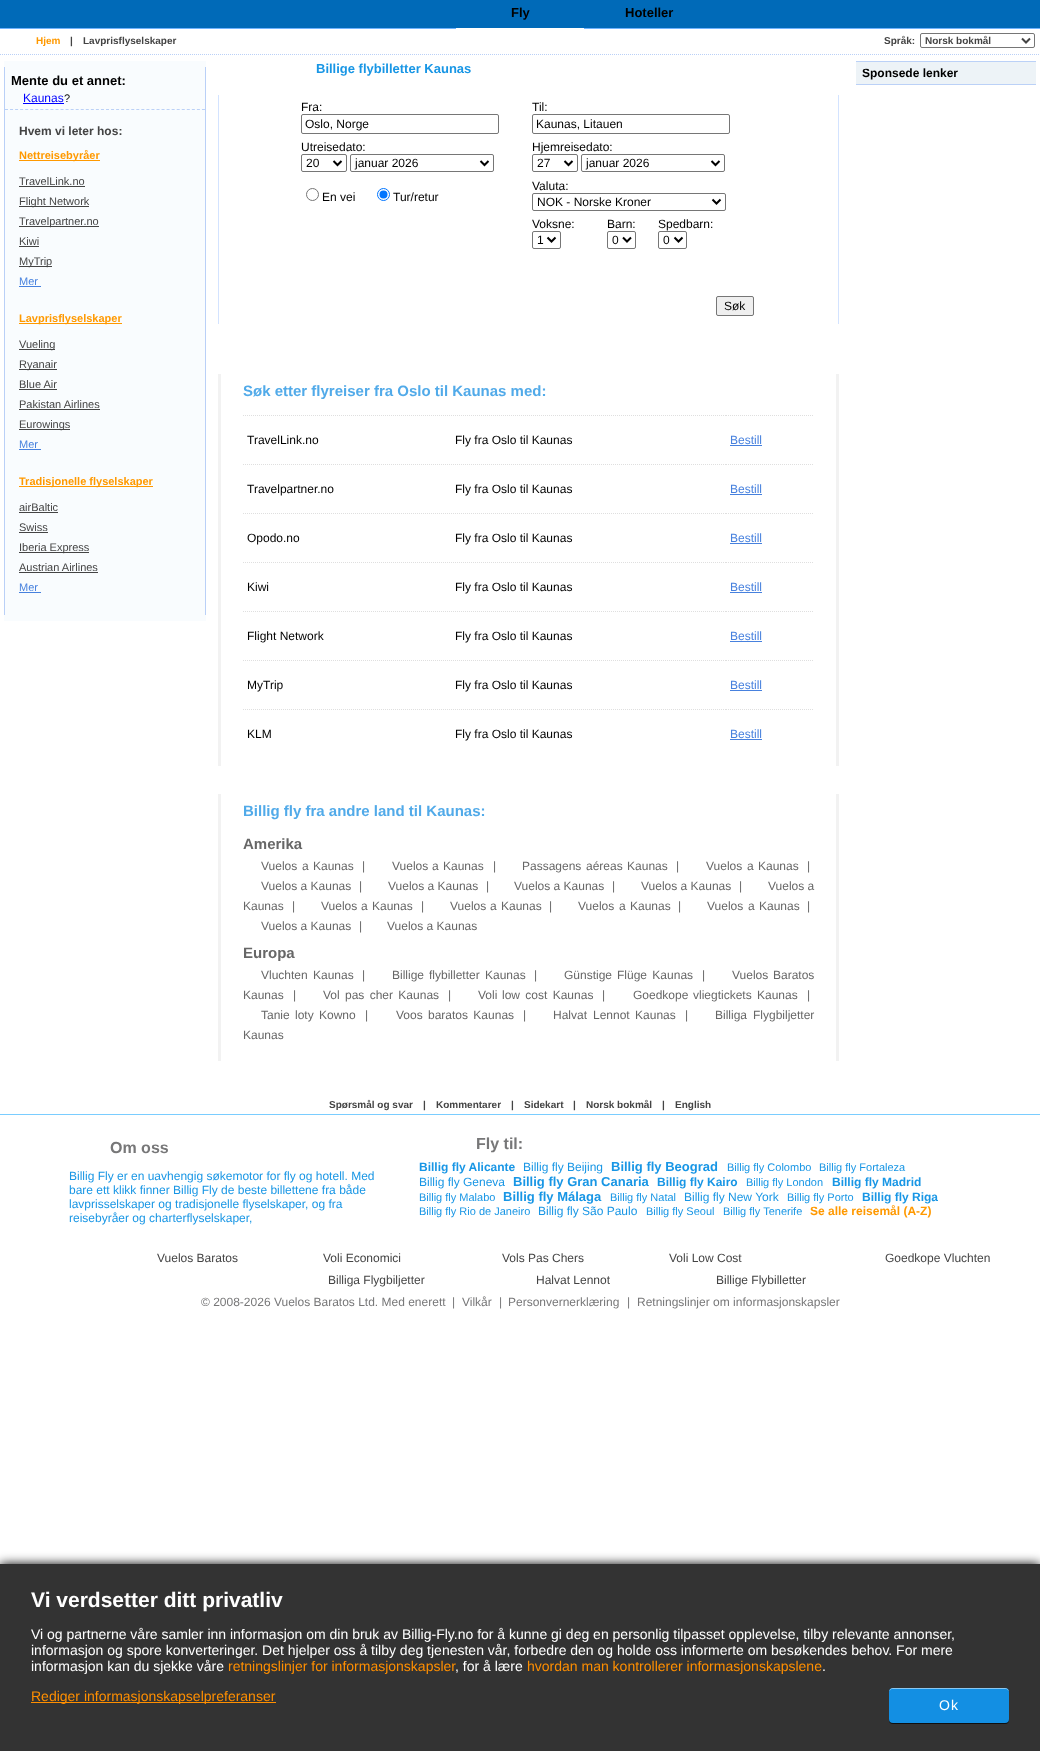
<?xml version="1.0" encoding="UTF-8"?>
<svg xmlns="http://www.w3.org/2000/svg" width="1040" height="1751">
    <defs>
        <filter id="blur1" x="-50%" y="-200%" width="200%" height="500%"><feGaussianBlur stdDeviation="5.5"/></filter>
        <filter id="blur2" x="-50%" y="-200%" width="200%" height="500%"><feGaussianBlur stdDeviation="0.5"/></filter>
    </defs>
    <rect width="100%" height="100%" fill="#FFFFFF"/>
    <rect x="0" y="0" width="1040" height="28" fill="#006AB8"/>
    <text x="511" y="17" font-family="Liberation Sans" font-size="13" font-weight="700" fill="#000000">Fly</text>
    <rect x="584" y="28" width="456" height="1" fill="#6FB3FE"/>
    <text x="625" y="17" font-family="Liberation Sans" font-size="13" font-weight="700" fill="#000000">Hoteller</text>
    <rect x="0" y="28" width="456" height="1" fill="#6FB3FE"/>
    <path d="M 0 54.5 H 1040" fill="none" stroke="#BAD0F7" stroke-dasharray="1 1"/>
    <text x="36" y="44" font-family="Liberation Sans" font-size="10" font-weight="700" fill="#FF9900">Hjem</text>
    <text x="70" y="44" font-family="Liberation Sans" font-size="10" font-weight="700" fill="#444444">|</text>
    <text x="83" y="44" font-family="Liberation Sans" font-size="10" font-weight="700" fill="#444444">Lavprisflyselskaper</text>
    <text x="884" y="44" font-family="Liberation Sans" font-size="10" font-weight="700" fill="#444444">Språk:</text>
    <rect x="920.5" y="33.5" width="114" height="14" rx="1.5" fill="none" stroke="#767676"/>
    <path d="M 1022 38.5 L 1026 42.5 L 1030 38.5" fill="none" stroke="#444444" stroke-width="2"/>
    <text x="925" y="44" font-family="Liberation Sans" font-size="10" font-weight="700" fill="#444444">Norsk bokmål</text>
    <rect x="4" y="61" width="202" height="560" fill="#F9FCFE"/>
    <rect x="205" y="67" width="1" height="548" fill="#BAD0F7"/>
    <rect x="4" y="67" width="1" height="548" fill="#BAD0F7"/>
    <path d="M 5 109.5 H 205" fill="none" stroke="#BBD1F7" stroke-dasharray="3 2.05"/>
    <text x="11" y="85" font-family="Liberation Sans" font-size="13" font-weight="700" fill="#000000">Mente du et annet:</text>
    <text x="23" y="102" font-family="Liberation Sans" font-size="12" fill="#0000FF">Kaunas</text>
    <rect x="23" y="103" width="41" height="1" fill="#0000FF"/>
    <text x="64" y="102" font-family="Liberation Sans" font-size="11" fill="#000000">?</text>
    <text x="19" y="135" font-family="Liberation Sans" font-size="12" font-weight="700" fill="#444444">Hvem vi leter hos:</text>
    <rect x="19" y="160" width="81" height="1" fill="#FF9900"/>
    <text x="19" y="159" font-family="Liberation Sans" font-size="11" font-weight="700" fill="#FF9900">Nettreisebyråer</text>
    <text x="19" y="185" font-family="Liberation Sans" font-size="11" fill="#444444">TravelLink.no</text>
    <rect x="19" y="186" width="66" height="1" fill="#444444"/>
    <rect x="19" y="206" width="70" height="1" fill="#444444"/>
    <text x="19" y="205" font-family="Liberation Sans" font-size="11" fill="#444444">Flight Network</text>
    <rect x="19" y="226" width="80" height="1" fill="#444444"/>
    <text font-family="Liberation Sans" font-size="11" fill="#444444">
        <tspan x="19" y="225">Travelpartner.no</tspan>
        <tspan x="19" y="245">Kiwi</tspan>
    </text>
    <rect x="19" y="246" width="20" height="1" fill="#444444"/>
    <rect x="19" y="266" width="33" height="1" fill="#444444"/>
    <text x="19" y="265" font-family="Liberation Sans" font-size="11" fill="#444444">MyTrip</text>
    <text x="19" y="285" font-family="Liberation Sans" font-size="11" fill="#4781DE">Mer</text>
    <rect x="19" y="286" width="22" height="1" fill="#4781DE"/>
    <rect x="19" y="323" width="103" height="1" fill="#FF9900"/>
    <text x="19" y="322" font-family="Liberation Sans" font-size="11" font-weight="700" fill="#FF9900">Lavprisflyselskaper</text>
    <rect x="19" y="349" width="36" height="1" fill="#444444"/>
    <text x="19" y="348" font-family="Liberation Sans" font-size="11" fill="#444444">Vueling</text>
    <rect x="19" y="369" width="38" height="1" fill="#444444"/>
    <text font-family="Liberation Sans" font-size="11" fill="#444444">
        <tspan x="19" y="368">Ryanair</tspan>
        <tspan x="19" y="388">Blue Air</tspan>
    </text>
    <rect x="19" y="389" width="38" height="1" fill="#444444"/>
    <text x="19" y="408" font-family="Liberation Sans" font-size="11" fill="#444444">Pakistan Airlines</text>
    <rect x="19" y="409" width="81" height="1" fill="#444444"/>
    <rect x="19" y="429" width="51" height="1" fill="#444444"/>
    <text x="19" y="428" font-family="Liberation Sans" font-size="11" fill="#444444">Eurowings</text>
    <text x="19" y="448" font-family="Liberation Sans" font-size="11" fill="#4781DE">Mer</text>
    <rect x="19" y="449" width="22" height="1" fill="#4781DE"/>
    <rect x="19" y="486" width="134" height="1" fill="#FF9900"/>
    <text x="19" y="485" font-family="Liberation Sans" font-size="11" font-weight="700" fill="#FF9900">Tradisjonelle flyselskaper</text>
    <text x="19" y="511" font-family="Liberation Sans" font-size="11" fill="#444444">airBaltic</text>
    <rect x="19" y="512" width="39" height="1" fill="#444444"/>
    <text x="19" y="531" font-family="Liberation Sans" font-size="11" fill="#444444">Swiss</text>
    <rect x="19" y="532" width="29" height="1" fill="#444444"/>
    <rect x="19" y="552" width="70" height="1" fill="#444444"/>
    <text font-family="Liberation Sans" font-size="11" fill="#444444">
        <tspan x="19" y="551">Iberia Express</tspan>
        <tspan x="19" y="571">Austrian Airlines</tspan>
    </text>
    <rect x="19" y="572" width="79" height="1" fill="#444444"/>
    <text x="19" y="591" font-family="Liberation Sans" font-size="11" fill="#4781DE">Mer</text>
    <rect x="19" y="592" width="22" height="1" fill="#4781DE"/>
    <text x="316" y="73" font-family="Liberation Sans" font-size="13" font-weight="700" fill="#1896E5">Billige flybilletter Kaunas</text>
    <rect x="838" y="95" width="1" height="229" fill="#D3E3FF"/>
    <rect x="218" y="95" width="1" height="229" fill="#D3E3FF"/>
    <text x="301" y="111" font-family="Liberation Sans" font-size="12" fill="#000000">Fra:</text>
    <rect x="301.5" y="114.5" width="197" height="19" rx="1.5" fill="none" stroke="#767676"/>
    <text x="305" y="128" font-family="Liberation Sans" font-size="12" fill="#000000">Oslo, Norge</text>
    <text x="532" y="111" font-family="Liberation Sans" font-size="12" fill="#000000">Til:</text>
    <rect x="532.5" y="114.5" width="197" height="19" rx="1.5" fill="none" stroke="#767676"/>
    <text x="536" y="128" font-family="Liberation Sans" font-size="12" fill="#000000">Kaunas, Litauen</text>
    <text x="301" y="151" font-family="Liberation Sans" font-size="12" fill="#000000">Utreisedato:</text>
    <rect x="301.5" y="154.5" width="45" height="17" rx="1.5" fill="none" stroke="#767676"/>
    <path d="M 333.5 161 L 337.5 165 L 341.5 161" fill="none" stroke="#000000" stroke-width="2"/>
    <text x="306" y="167" font-family="Liberation Sans" font-size="12" fill="#000000">20</text>
    <rect x="350.5" y="154.5" width="143" height="17" rx="1.5" fill="none" stroke="#767676"/>
    <path d="M 480.5 161 L 484.5 165 L 488.5 161" fill="none" stroke="#000000" stroke-width="2"/>
    <text x="355" y="167" font-family="Liberation Sans" font-size="12" fill="#000000">januar 2026</text>
    <text x="532" y="151" font-family="Liberation Sans" font-size="12" fill="#000000">Hjemreisedato:</text>
    <rect x="532.5" y="154.5" width="45" height="17" rx="1.5" fill="none" stroke="#767676"/>
    <path d="M 564.5 161 L 568.5 165 L 572.5 161" fill="none" stroke="#000000" stroke-width="2"/>
    <text x="537" y="167" font-family="Liberation Sans" font-size="12" fill="#000000">27</text>
    <rect x="581.5" y="154.5" width="143" height="17" rx="1.5" fill="none" stroke="#767676"/>
    <path d="M 711.5 161 L 715.5 165 L 719.5 161" fill="none" stroke="#000000" stroke-width="2"/>
    <text x="586" y="167" font-family="Liberation Sans" font-size="12" fill="#000000">januar 2026</text>
    <circle cx="312.5" cy="194.5" r="6" fill="none" stroke="#767676"/>
    <text x="322" y="201" font-family="Liberation Sans" font-size="12" fill="#000000">En vei</text>
    <circle cx="383.5" cy="194.5" r="6" fill="none" stroke="#0075FF"/>
    <circle cx="383.5" cy="194.5" r="4" fill="#0075FF"/>
    <text x="393" y="201" font-family="Liberation Sans" font-size="12" fill="#000000">Tur/retur</text>
    <text x="532" y="190" font-family="Liberation Sans" font-size="12" fill="#000000">Valuta:</text>
    <rect x="532.5" y="193.5" width="193" height="17" rx="1.5" fill="none" stroke="#767676"/>
    <path d="M 712.5 199.5 L 716.5 203.5 L 720.5 199.5" fill="none" stroke="#000000" stroke-width="2"/>
    <text x="537" y="206" font-family="Liberation Sans" font-size="12" fill="#000000">NOK - Norske Kroner</text>
    <text x="532" y="228" font-family="Liberation Sans" font-size="12" fill="#000000">Voksne:</text>
    <rect x="532.5" y="231.5" width="28" height="17" rx="1.5" fill="none" stroke="#767676"/>
    <path d="M 547.5 237.5 L 551.5 241.5 L 555.5 237.5" fill="none" stroke="#000000" stroke-width="2"/>
    <text x="537" y="244" font-family="Liberation Sans" font-size="12" fill="#000000">1</text>
    <text x="607" y="228" font-family="Liberation Sans" font-size="12" fill="#000000">Barn:</text>
    <rect x="607.5" y="231.5" width="28" height="17" rx="1.5" fill="none" stroke="#767676"/>
    <path d="M 623 237.5 L 627 241.5 L 631 237.5" fill="none" stroke="#000000" stroke-width="2"/>
    <text x="612" y="244" font-family="Liberation Sans" font-size="12" fill="#000000">0</text>
    <text x="658" y="228" font-family="Liberation Sans" font-size="12" fill="#000000">Spedbarn:</text>
    <rect x="658.5" y="231.5" width="28" height="17" rx="1.5" fill="none" stroke="#767676"/>
    <path d="M 674.5 237.5 L 678.5 241.5 L 682.5 237.5" fill="none" stroke="#000000" stroke-width="2"/>
    <text x="663" y="244" font-family="Liberation Sans" font-size="12" fill="#000000">0</text>
    <rect x="716.5" y="296.5" width="37" height="19" rx="1.5" fill="#EFEFEF" stroke="#767676"/>
    <text x="724" y="310" font-family="Liberation Sans" font-size="12" fill="#000000">Søk</text>
    <rect x="836" y="374" width="3" height="392" fill="#F2F2F2"/>
    <rect x="218" y="374" width="3" height="392" fill="#F2F2F2"/>
    <text x="243" y="396" font-family="Liberation Sans" font-size="15" font-weight="700" fill="#51AAE9">Søk etter flyreiser fra Oslo til Kaunas med:</text>
    <path d="M 243 415.5 H 451" fill="none" stroke="#DFDFDF" stroke-dasharray="1 1"/>
    <text x="247" y="444" font-family="Liberation Sans" font-size="12" fill="#000000">TravelLink.no</text>
    <path d="M 451 415.5 H 726" fill="none" stroke="#DFDFDF" stroke-dasharray="1 1"/>
    <text x="455" y="444" font-family="Liberation Sans" font-size="12" fill="#000000">Fly fra Oslo til Kaunas</text>
    <path d="M 726 415.5 H 814" fill="none" stroke="#DFDFDF" stroke-dasharray="1 1"/>
    <text x="730" y="444" font-family="Liberation Sans" font-size="12" fill="#4781DE">Bestill</text>
    <rect x="730" y="445" width="32" height="1" fill="#4781DE"/>
    <path d="M 243 464.5 H 451" fill="none" stroke="#DFDFDF" stroke-dasharray="1 1"/>
    <text x="247" y="493" font-family="Liberation Sans" font-size="12" fill="#000000">Travelpartner.no</text>
    <path d="M 451 464.5 H 726" fill="none" stroke="#DFDFDF" stroke-dasharray="1 1"/>
    <text x="455" y="493" font-family="Liberation Sans" font-size="12" fill="#000000">Fly fra Oslo til Kaunas</text>
    <path d="M 726 464.5 H 814" fill="none" stroke="#DFDFDF" stroke-dasharray="1 1"/>
    <text x="730" y="493" font-family="Liberation Sans" font-size="12" fill="#4781DE">Bestill</text>
    <rect x="730" y="494" width="32" height="1" fill="#4781DE"/>
    <path d="M 243 513.5 H 451" fill="none" stroke="#DFDFDF" stroke-dasharray="1 1"/>
    <text x="247" y="542" font-family="Liberation Sans" font-size="12" fill="#000000">Opodo.no</text>
    <path d="M 451 513.5 H 726" fill="none" stroke="#DFDFDF" stroke-dasharray="1 1"/>
    <text x="455" y="542" font-family="Liberation Sans" font-size="12" fill="#000000">Fly fra Oslo til Kaunas</text>
    <path d="M 726 513.5 H 814" fill="none" stroke="#DFDFDF" stroke-dasharray="1 1"/>
    <text x="730" y="542" font-family="Liberation Sans" font-size="12" fill="#4781DE">Bestill</text>
    <rect x="730" y="543" width="32" height="1" fill="#4781DE"/>
    <path d="M 243 562.5 H 451" fill="none" stroke="#DFDFDF" stroke-dasharray="1 1"/>
    <text x="247" y="591" font-family="Liberation Sans" font-size="12" fill="#000000">Kiwi</text>
    <path d="M 451 562.5 H 726" fill="none" stroke="#DFDFDF" stroke-dasharray="1 1"/>
    <text x="455" y="591" font-family="Liberation Sans" font-size="12" fill="#000000">Fly fra Oslo til Kaunas</text>
    <path d="M 726 562.5 H 814" fill="none" stroke="#DFDFDF" stroke-dasharray="1 1"/>
    <text x="730" y="591" font-family="Liberation Sans" font-size="12" fill="#4781DE">Bestill</text>
    <rect x="730" y="592" width="32" height="1" fill="#4781DE"/>
    <path d="M 243 611.5 H 451" fill="none" stroke="#DFDFDF" stroke-dasharray="1 1"/>
    <text x="247" y="640" font-family="Liberation Sans" font-size="12" fill="#000000">Flight Network</text>
    <path d="M 451 611.5 H 726" fill="none" stroke="#DFDFDF" stroke-dasharray="1 1"/>
    <text x="455" y="640" font-family="Liberation Sans" font-size="12" fill="#000000">Fly fra Oslo til Kaunas</text>
    <path d="M 726 611.5 H 814" fill="none" stroke="#DFDFDF" stroke-dasharray="1 1"/>
    <text x="730" y="640" font-family="Liberation Sans" font-size="12" fill="#4781DE">Bestill</text>
    <rect x="730" y="641" width="32" height="1" fill="#4781DE"/>
    <path d="M 243 660.5 H 451" fill="none" stroke="#DFDFDF" stroke-dasharray="1 1"/>
    <text x="247" y="689" font-family="Liberation Sans" font-size="12" fill="#000000">MyTrip</text>
    <path d="M 451 660.5 H 726" fill="none" stroke="#DFDFDF" stroke-dasharray="1 1"/>
    <text x="455" y="689" font-family="Liberation Sans" font-size="12" fill="#000000">Fly fra Oslo til Kaunas</text>
    <path d="M 726 660.5 H 814" fill="none" stroke="#DFDFDF" stroke-dasharray="1 1"/>
    <text x="730" y="689" font-family="Liberation Sans" font-size="12" fill="#4781DE">Bestill</text>
    <rect x="730" y="690" width="32" height="1" fill="#4781DE"/>
    <path d="M 243 709.5 H 451" fill="none" stroke="#DFDFDF" stroke-dasharray="1 1"/>
    <text x="247" y="738" font-family="Liberation Sans" font-size="12" fill="#000000">KLM</text>
    <path d="M 451 709.5 H 726" fill="none" stroke="#DFDFDF" stroke-dasharray="1 1"/>
    <text x="455" y="738" font-family="Liberation Sans" font-size="12" fill="#000000">Fly fra Oslo til Kaunas</text>
    <path d="M 726 709.5 H 814" fill="none" stroke="#DFDFDF" stroke-dasharray="1 1"/>
    <text x="730" y="738" font-family="Liberation Sans" font-size="12" fill="#4781DE">Bestill</text>
    <rect x="730" y="739" width="32" height="1" fill="#4781DE"/>
    <rect x="836" y="794" width="3" height="267" fill="#F2F2F2"/>
    <rect x="218" y="794" width="3" height="267" fill="#F2F2F2"/>
    <text x="243" y="816" font-family="Liberation Sans" font-size="15" font-weight="700" fill="#51AAE9">Billig fly fra andre land til Kaunas:</text>
    <text x="243" y="849" font-family="Liberation Sans" font-size="15" font-weight="700" fill="#676767">Amerika</text>
    <text x="261" y="870" font-family="Liberation Sans" font-size="12" fill="#676767">Vuelos</text>
    <text x="302" y="870" word-spacing="1" font-family="Liberation Sans" font-size="12" fill="#676767">a Kaunas</text>
    <text x="362" y="870" font-family="Liberation Sans" font-size="12" fill="#676767">|</text>
    <text x="392" y="870" font-family="Liberation Sans" font-size="12" fill="#676767">Vuelos</text>
    <text x="432" y="870" word-spacing="1" font-family="Liberation Sans" font-size="12" fill="#676767">a Kaunas</text>
    <text x="493" y="870" font-family="Liberation Sans" font-size="12" fill="#676767">|</text>
    <text x="522" y="870" font-family="Liberation Sans" font-size="12" fill="#676767">Passagens</text>
    <text x="586" y="870" word-spacing="1" font-family="Liberation Sans" font-size="12" fill="#676767">aéreas Kaunas</text>
    <text x="676" y="870" font-family="Liberation Sans" font-size="12" fill="#676767">|</text>
    <text x="706" y="870" font-family="Liberation Sans" font-size="12" fill="#676767">Vuelos</text>
    <text x="747" y="870" word-spacing="1" font-family="Liberation Sans" font-size="12" fill="#676767">a Kaunas</text>
    <text x="807" y="870" font-family="Liberation Sans" font-size="12" fill="#676767">|</text>
    <text x="261" y="890" font-family="Liberation Sans" font-size="12" fill="#676767">Vuelos a Kaunas</text>
    <text x="359" y="890" font-family="Liberation Sans" font-size="12" fill="#676767">|</text>
    <text x="388" y="890" font-family="Liberation Sans" font-size="12" fill="#676767">Vuelos a Kaunas</text>
    <text x="486" y="890" font-family="Liberation Sans" font-size="12" fill="#676767">|</text>
    <text x="514" y="890" font-family="Liberation Sans" font-size="12" fill="#676767">Vuelos a Kaunas</text>
    <text x="612" y="890" font-family="Liberation Sans" font-size="12" fill="#676767">|</text>
    <text x="641" y="890" font-family="Liberation Sans" font-size="12" fill="#676767">Vuelos a Kaunas</text>
    <text x="739" y="890" font-family="Liberation Sans" font-size="12" fill="#676767">|</text>
    <text x="768" y="890" font-family="Liberation Sans" font-size="12" fill="#676767">Vuelos a</text>
    <text x="243" y="910" font-family="Liberation Sans" font-size="12" fill="#676767">Kaunas</text>
    <text x="292" y="910" font-family="Liberation Sans" font-size="12" fill="#676767">|</text>
    <text x="321" y="910" font-family="Liberation Sans" font-size="12" fill="#676767">Vuelos</text>
    <text x="361" y="910" word-spacing="1" font-family="Liberation Sans" font-size="12" fill="#676767">a Kaunas</text>
    <text x="421" y="910" font-family="Liberation Sans" font-size="12" fill="#676767">|</text>
    <text x="450" y="910" font-family="Liberation Sans" font-size="12" fill="#676767">Vuelos</text>
    <text x="490" y="910" word-spacing="1" font-family="Liberation Sans" font-size="12" fill="#676767">a Kaunas</text>
    <text x="549" y="910" font-family="Liberation Sans" font-size="12" fill="#676767">|</text>
    <text x="578" y="910" font-family="Liberation Sans" font-size="12" fill="#676767">Vuelos</text>
    <text x="619" y="910" word-spacing="1" font-family="Liberation Sans" font-size="12" fill="#676767">a Kaunas</text>
    <text x="678" y="910" font-family="Liberation Sans" font-size="12" fill="#676767">|</text>
    <text x="707" y="910" font-family="Liberation Sans" font-size="12" fill="#676767">Vuelos</text>
    <text x="748" y="910" word-spacing="1" font-family="Liberation Sans" font-size="12" fill="#676767">a Kaunas</text>
    <text x="807" y="910" font-family="Liberation Sans" font-size="12" fill="#676767">|</text>
    <text x="261" y="930" font-family="Liberation Sans" font-size="12" fill="#676767">Vuelos a Kaunas</text>
    <text x="359" y="930" font-family="Liberation Sans" font-size="12" fill="#676767">|</text>
    <text x="387" y="930" font-family="Liberation Sans" font-size="12" fill="#676767">Vuelos a Kaunas</text>
    <text x="243" y="958" font-family="Liberation Sans" font-size="15" font-weight="700" fill="#676767">Europa</text>
    <text x="261" y="979" font-family="Liberation Sans" font-size="12" fill="#676767">Vluchten</text>
    <text x="313" y="979" font-family="Liberation Sans" font-size="12" fill="#676767">Kaunas</text>
    <text x="362" y="979" font-family="Liberation Sans" font-size="12" fill="#676767">|</text>
    <text x="392" y="979" font-family="Liberation Sans" font-size="12" fill="#676767">Billige</text>
    <text x="429" y="979" word-spacing="2" font-family="Liberation Sans" font-size="12" fill="#676767">flybilletter Kaunas</text>
    <text x="534" y="979" font-family="Liberation Sans" font-size="12" fill="#676767">|</text>
    <text x="564" y="979" font-family="Liberation Sans" font-size="12" fill="#676767">Günstige</text>
    <text x="617" y="979" word-spacing="2" font-family="Liberation Sans" font-size="12" fill="#676767">Flüge Kaunas</text>
    <text x="702" y="979" font-family="Liberation Sans" font-size="12" fill="#676767">|</text>
    <text x="732" y="979" font-family="Liberation Sans" font-size="12" fill="#676767">Vuelos</text>
    <text x="773" y="979" font-family="Liberation Sans" font-size="12" fill="#676767">Baratos</text>
    <text x="243" y="999" font-family="Liberation Sans" font-size="12" fill="#676767">Kaunas</text>
    <text x="293" y="999" font-family="Liberation Sans" font-size="12" fill="#676767">|</text>
    <text x="323" y="999" font-family="Liberation Sans" font-size="12" fill="#676767">Vol</text>
    <text x="345" y="999" word-spacing="2" font-family="Liberation Sans" font-size="12" fill="#676767">pas cher Kaunas</text>
    <text x="448" y="999" font-family="Liberation Sans" font-size="12" fill="#676767">|</text>
    <text x="478" y="999" font-family="Liberation Sans" font-size="12" fill="#676767">Voli</text>
    <text x="502" y="999" word-spacing="2" font-family="Liberation Sans" font-size="12" fill="#676767">low cost Kaunas</text>
    <text x="602" y="999" font-family="Liberation Sans" font-size="12" fill="#676767">|</text>
    <text x="633" y="999" font-family="Liberation Sans" font-size="12" fill="#676767">Goedkope</text>
    <text x="693" y="999" word-spacing="2" font-family="Liberation Sans" font-size="12" fill="#676767">vliegtickets Kaunas</text>
    <text x="807" y="999" font-family="Liberation Sans" font-size="12" fill="#676767">|</text>
    <text x="261" y="1019" font-family="Liberation Sans" font-size="12" fill="#676767">Tanie</text>
    <text x="295" y="1019" word-spacing="2" font-family="Liberation Sans" font-size="12" fill="#676767">loty Kowno</text>
    <text x="365" y="1019" font-family="Liberation Sans" font-size="12" fill="#676767">|</text>
    <text x="396" y="1019" font-family="Liberation Sans" font-size="12" fill="#676767">Voos</text>
    <text x="428" y="1019" word-spacing="2" font-family="Liberation Sans" font-size="12" fill="#676767">baratos Kaunas</text>
    <text x="523" y="1019" font-family="Liberation Sans" font-size="12" fill="#676767">|</text>
    <text x="553" y="1019" font-family="Liberation Sans" font-size="12" fill="#676767">Halvat</text>
    <text x="593" y="1019" word-spacing="2" font-family="Liberation Sans" font-size="12" fill="#676767">Lennot Kaunas</text>
    <text x="685" y="1019" font-family="Liberation Sans" font-size="12" fill="#676767">|</text>
    <text x="715" y="1019" font-family="Liberation Sans" font-size="12" fill="#676767">Billiga</text>
    <text x="753" y="1019" font-family="Liberation Sans" font-size="12" fill="#676767">Flygbiljetter</text>
    <text x="243" y="1039" font-family="Liberation Sans" font-size="12" fill="#676767">Kaunas</text>
    <rect x="856" y="62" width="180" height="22" fill="#EDF3F7"/>
    <rect x="856" y="61" width="180" height="1" fill="#BBD1F7"/>
    <rect x="856" y="84" width="180" height="1" fill="#BBD1F7"/>
    <text x="862" y="77" font-family="Liberation Sans" font-size="12" font-weight="700" fill="#000000">Sponsede lenker</text>
    <text x="329" y="1108" font-family="Liberation Sans" font-size="10" font-weight="700" fill="#444444">Spørsmål og svar</text>
    <text x="423" y="1108" font-family="Liberation Sans" font-size="10" font-weight="700" fill="#444444">|</text>
    <text x="436" y="1108" font-family="Liberation Sans" font-size="10" font-weight="700" fill="#444444">Kommentarer</text>
    <text x="511" y="1108" font-family="Liberation Sans" font-size="10" font-weight="700" fill="#444444">|</text>
    <text x="524" y="1108" font-family="Liberation Sans" font-size="10" font-weight="700" fill="#444444">Sidekart</text>
    <text x="573" y="1108" font-family="Liberation Sans" font-size="10" font-weight="700" fill="#444444">|</text>
    <text x="586" y="1108" font-family="Liberation Sans" font-size="10" font-weight="700" fill="#444444">Norsk bokmål</text>
    <text x="662" y="1108" font-family="Liberation Sans" font-size="10" font-weight="700" fill="#444444">|</text>
    <text x="675" y="1108" font-family="Liberation Sans" font-size="10" font-weight="700" fill="#444444">English</text>
    <rect x="0" y="1114" width="1040" height="1" fill="#7ACDFF"/>
    <text x="110" y="1153" font-family="Liberation Sans" font-size="16" font-weight="700" fill="#777778">Om oss</text>
    <text font-family="Liberation Sans" font-size="12" fill="#1896E5">
        <tspan x="69" y="1180">Billig Fly er en uavhengig søkemotor for fly og hotell. Med</tspan>
        <tspan x="69" y="1194">bare ett klikk finner Billig Fly de beste billettene fra både</tspan>
        <tspan x="69" y="1208">lavprisselskaper og tradisjonelle flyselskaper, og fra</tspan>
        <tspan x="69" y="1222">reisebyråer og charterflyselskaper,</tspan>
    </text>
    <text x="476" y="1149" font-family="Liberation Sans" font-size="16" font-weight="700" fill="#777778">Fly til:</text>
    <text x="419" y="1171" font-family="Liberation Sans" font-size="12" font-weight="700" fill="#1896E5">Billig fly Alicante</text>
    <text x="523" y="1171" font-family="Liberation Sans" font-size="12" fill="#1896E5">Billig fly Beijing</text>
    <text x="611" y="1171" font-family="Liberation Sans" font-size="13" font-weight="700" fill="#1896E5">Billig fly Beograd</text>
    <text x="727" y="1171" font-family="Liberation Sans" font-size="11" fill="#1896E5">Billig fly Colombo</text>
    <text x="819" y="1171" font-family="Liberation Sans" font-size="11" fill="#1896E5">Billig fly Fortaleza</text>
    <text x="419" y="1186" font-family="Liberation Sans" font-size="12" fill="#1896E5">Billig fly Geneva</text>
    <text x="513" y="1186" font-family="Liberation Sans" font-size="13" font-weight="700" fill="#1896E5">Billig fly Gran Canaria</text>
    <text x="657" y="1186" font-family="Liberation Sans" font-size="12" font-weight="700" fill="#1896E5">Billig fly Kairo</text>
    <text x="746" y="1186" font-family="Liberation Sans" font-size="11" fill="#1896E5">Billig fly London</text>
    <text x="832" y="1186" font-family="Liberation Sans" font-size="12" font-weight="700" fill="#1896E5">Billig fly Madrid</text>
    <text x="419" y="1201" font-family="Liberation Sans" font-size="11" fill="#1896E5">Billig fly Malabo</text>
    <text x="503" y="1201" font-family="Liberation Sans" font-size="13" font-weight="700" fill="#1896E5">Billig fly Málaga</text>
    <text x="610" y="1201" font-family="Liberation Sans" font-size="11" fill="#1896E5">Billig fly Natal</text>
    <text x="684" y="1201" font-family="Liberation Sans" font-size="12" fill="#1896E5">Billig fly New York</text>
    <text x="787" y="1201" font-family="Liberation Sans" font-size="11" fill="#1896E5">Billig fly Porto</text>
    <text x="862" y="1201" font-family="Liberation Sans" font-size="12" font-weight="700" fill="#1896E5">Billig fly Riga</text>
    <text x="419" y="1215" font-family="Liberation Sans" font-size="11" fill="#1896E5">Billig fly Rio de Janeiro</text>
    <text x="538" y="1215" font-family="Liberation Sans" font-size="12" fill="#1896E5">Billig fly São Paulo</text>
    <text x="646" y="1215" font-family="Liberation Sans" font-size="11" fill="#1896E5">Billig fly Seoul</text>
    <text x="723" y="1215" font-family="Liberation Sans" font-size="11" fill="#1896E5">Billig fly Tenerife</text>
    <text x="810" y="1215" font-family="Liberation Sans" font-size="12" font-weight="700" fill="#FF9900">Se alle reisemål (A-Z)</text>
    <text x="157" y="1262" font-family="Liberation Sans" font-size="12" fill="#444444">Vuelos Baratos</text>
    <text x="323" y="1262" font-family="Liberation Sans" font-size="12" fill="#444444">Voli Economici</text>
    <text x="502" y="1262" font-family="Liberation Sans" font-size="12" fill="#444444">Vols Pas Chers</text>
    <text x="669" y="1262" font-family="Liberation Sans" font-size="12" fill="#444444">Voli Low Cost</text>
    <text x="885" y="1262" font-family="Liberation Sans" font-size="12" fill="#444444">Goedkope Vluchten</text>
    <text x="328" y="1284" font-family="Liberation Sans" font-size="12" fill="#444444">Billiga Flygbiljetter</text>
    <text x="536" y="1284" font-family="Liberation Sans" font-size="12" fill="#444444">Halvat Lennot</text>
    <text x="716" y="1284" font-family="Liberation Sans" font-size="12" fill="#444444">Billige Flybilletter</text>
    <text x="201" y="1306" font-family="Liberation Sans" font-size="12" fill="#777778">© 2008-2026 Vuelos Baratos Ltd. Med enerett</text>
    <text x="452" y="1306" font-family="Liberation Sans" font-size="12" fill="#777778">|</text>
    <text x="462" y="1306" font-family="Liberation Sans" font-size="12" fill="#777778">Vilkår</text>
    <text x="499" y="1306" font-family="Liberation Sans" font-size="12" fill="#777778">|</text>
    <text x="508" y="1306" font-family="Liberation Sans" font-size="12" fill="#777778">Personvernerklæring</text>
    <text x="627" y="1306" font-family="Liberation Sans" font-size="12" fill="#777778">|</text>
    <text x="637" y="1306" font-family="Liberation Sans" font-size="12" fill="#777778">Retningslinjer om informasjonskapsler</text>
    <rect x="0" y="1564" width="1040" height="187" fill="#000000" filter="url(#blur1)"/>
    <rect x="0" y="1564" width="1040" height="187" fill="#333333"/>
    <text x="31" y="1607" font-family="Liberation Sans" font-size="21" font-weight="700" fill="#FFFFFF">Vi verdsetter ditt privatliv</text>
    <text font-family="Liberation Sans" font-size="14" fill="#FFFFFF">
        <tspan x="31" y="1639">Vi og partnerne våre samler inn informasjon om din bruk av Billig-Fly.no for å kunne gi deg en personlig tilpasset opplevelse, tilby relevante annonser,</tspan>
        <tspan x="31" y="1655">informasjon og spore konverteringer. Det hjelper oss å tilby deg tjenesten vår, forbedre den og holde oss informerte om besøkendes behov. For mere</tspan>
        <tspan x="31" y="1671">informasjon kan du sjekke våre</tspan>
    </text>
    <text x="228" y="1671" font-family="Liberation Sans" font-size="14" fill="#FF8F00">retningslinjer for informasjonskapsler</text>
    <text x="455" y="1671" font-family="Liberation Sans" font-size="14" fill="#FFFFFF">, for å lære</text>
    <text x="527" y="1671" font-family="Liberation Sans" font-size="14" fill="#FF8F00">hvordan man kontrollerer informasjonskapslene</text>
    <text x="822" y="1671" font-family="Liberation Sans" font-size="14" fill="#FFFFFF">.</text>
    <rect x="31" y="1702" width="245" height="1" fill="#FF8F00"/>
    <text x="31" y="1701" font-family="Liberation Sans" font-size="14" fill="#FF8F00">Rediger informasjonskapselpreferanser</text>
    <rect x="889" y="1689" width="120" height="35" rx="4" fill="#000000" fill-opacity="0.7" filter="url(#blur2)"/>
    <rect x="889" y="1688" width="120" height="35" rx="4" fill="#138FE3"/>
    <path d="M 892 1689 H 1006 C 1007 1689 1009 1691 1009 1692 C 1009 1690 1007 1688 1005 1688 H 893 C 891 1688 889 1690 889 1692 C 889 1691 891 1689 892 1689 Z" fill="#FFFFFF" fill-opacity="0.5"/>
    <text x="939" y="1710" font-family="Liberation Sans" font-size="14" letter-spacing="1" fill="#FFFFFF">Ok</text>
</svg>
